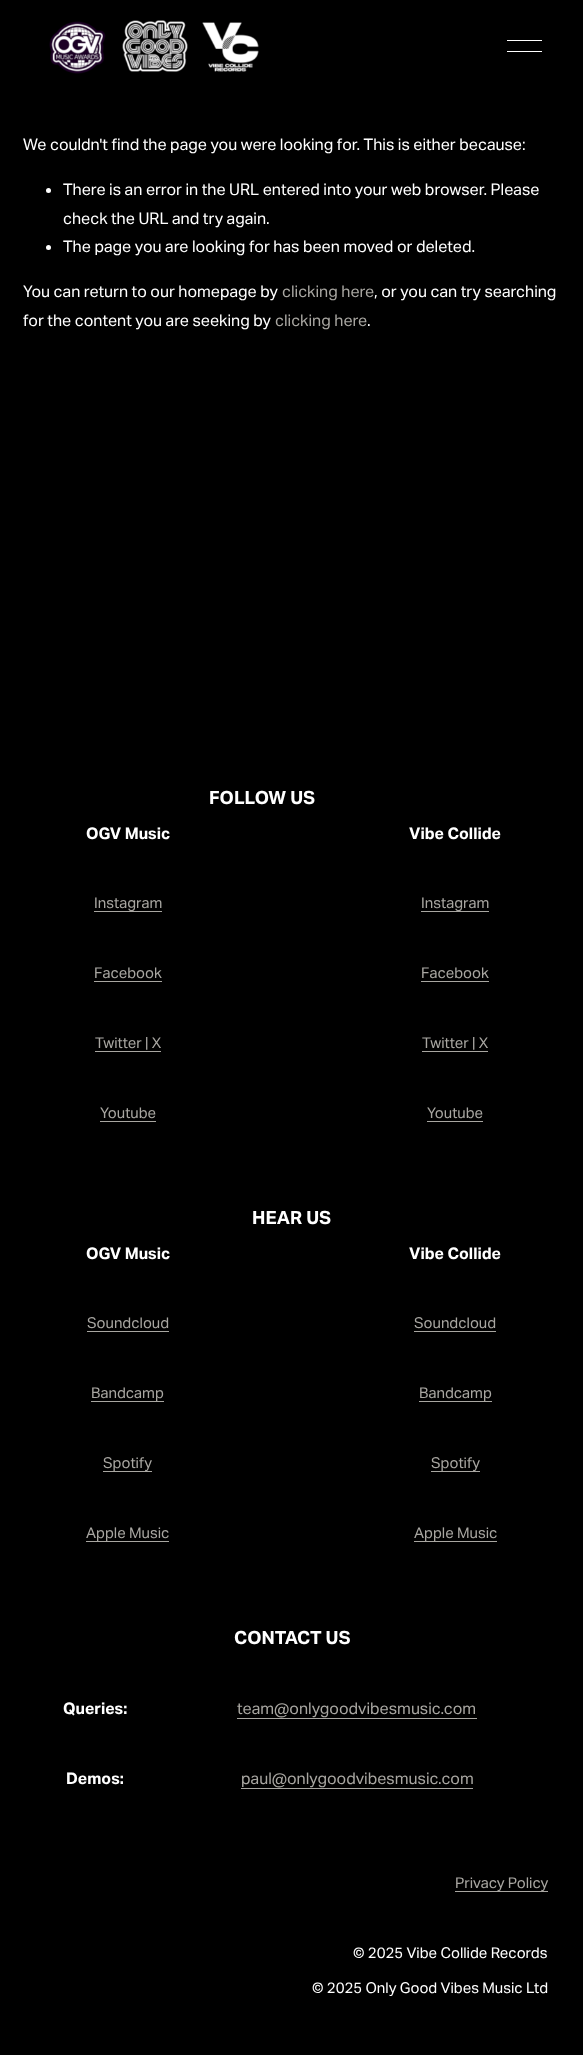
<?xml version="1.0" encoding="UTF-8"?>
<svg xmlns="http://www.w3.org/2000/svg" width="583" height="2055">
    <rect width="100%" height="100%" fill="#000000"/>
    <image x="49" y="20" width="210" height="54" href="img_01.png"/>
    <rect x="507" y="40" width="35" height="1" fill="#FFFFFF"/>
    <rect x="507" y="51" width="35" height="1" fill="#FFFFFF"/>
    <text x="23" y="150" font-family="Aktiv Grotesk" font-size="16" fill="#FFFFFF">We couldn't find the page you were looking for. This is either because:</text>
    <circle cx="48.5" cy="190.5" r="2.5" fill="#FFFFFF"/>
    <text font-family="Aktiv Grotesk" font-size="16" fill="#FFFFFF">
        <tspan x="63" y="195">There is an error in the URL entered into your web browser. Please</tspan>
        <tspan x="63" y="224">check the URL and try again.</tspan>
    </text>
    <circle cx="48.5" cy="247.5" r="2.5" fill="#FFFFFF"/>
    <text x="63" y="252" font-family="Aktiv Grotesk" font-size="16" fill="#FFFFFF">The page you are looking for has been moved or deleted.</text>
    <text x="23" y="297" font-family="Aktiv Grotesk" font-size="16" fill="#FFFFFF">You can return to our homepage by</text>
    <text x="282" y="297" font-family="Aktiv Grotesk" font-size="16" fill="#A8A6A1">clicking here</text>
    <text x="374" y="297" font-family="Aktiv Grotesk" font-size="16" fill="#FFFFFF">, or you can try searching</text>
    <text x="23" y="326" font-family="Aktiv Grotesk" font-size="16" fill="#FFFFFF">for the content you are seeking by</text>
    <text x="275" y="326" font-family="Aktiv Grotesk" font-size="16" fill="#A8A6A1">clicking here</text>
    <text x="367" y="326" font-family="Aktiv Grotesk" font-size="16" fill="#FFFFFF">.</text>
    <text x="209" y="804" font-family="Aktiv Grotesk" font-size="18.25" font-weight="700" fill="#FFFFFF">FOLLOW US</text>
    <text x="86" y="839" font-family="Aktiv Grotesk" font-size="16" font-weight="700" fill="#FFFFFF">OGV Music</text>
    <text x="409" y="839" font-family="Aktiv Grotesk" font-size="16" font-weight="700" fill="#FFFFFF">Vibe Collide</text>
    <rect x="94" y="911" width="68" height="1" fill="#A8A6A1"/>
    <text x="94" y="908" font-family="Aktiv Grotesk" font-size="14.9" fill="#A8A6A1">Instagram</text>
    <rect x="421" y="911" width="68" height="1" fill="#A8A6A1"/>
    <text x="421" y="908" font-family="Aktiv Grotesk" font-size="14.9" fill="#A8A6A1">Instagram</text>
    <text x="94" y="978" font-family="Aktiv Grotesk" font-size="14.9" fill="#A8A6A1">Facebook</text>
    <rect x="94" y="981" width="68" height="1" fill="#A8A6A1"/>
    <text x="421" y="978" font-family="Aktiv Grotesk" font-size="14.9" fill="#A8A6A1">Facebook</text>
    <rect x="421" y="981" width="68" height="1" fill="#A8A6A1"/>
    <text x="95" y="1048" font-family="Aktiv Grotesk" font-size="14.9" fill="#A8A6A1">Twitter | X</text>
    <rect x="95" y="1051" width="66" height="1" fill="#A8A6A1"/>
    <text x="422" y="1048" font-family="Aktiv Grotesk" font-size="14.9" fill="#A8A6A1">Twitter | X</text>
    <rect x="422" y="1051" width="66" height="1" fill="#A8A6A1"/>
    <text x="100" y="1118" font-family="Aktiv Grotesk" font-size="14.9" fill="#A8A6A1">Youtube</text>
    <rect x="100" y="1121" width="56" height="1" fill="#A8A6A1"/>
    <text x="427" y="1118" font-family="Aktiv Grotesk" font-size="14.9" fill="#A8A6A1">Youtube</text>
    <rect x="427" y="1121" width="56" height="1" fill="#A8A6A1"/>
    <text x="252" y="1224" font-family="Aktiv Grotesk" font-size="18.25" font-weight="700" fill="#FFFFFF">HEAR US</text>
    <text x="86" y="1259" font-family="Aktiv Grotesk" font-size="16" font-weight="700" fill="#FFFFFF">OGV Music</text>
    <text x="409" y="1259" font-family="Aktiv Grotesk" font-size="16" font-weight="700" fill="#FFFFFF">Vibe Collide</text>
    <text x="87" y="1328" font-family="Aktiv Grotesk" font-size="14.9" fill="#A8A6A1">Soundcloud</text>
    <rect x="87" y="1331" width="82" height="1" fill="#A8A6A1"/>
    <text x="414" y="1328" font-family="Aktiv Grotesk" font-size="14.9" fill="#A8A6A1">Soundcloud</text>
    <rect x="414" y="1331" width="82" height="1" fill="#A8A6A1"/>
    <text x="91" y="1398" font-family="Aktiv Grotesk" font-size="14.9" fill="#A8A6A1">Bandcamp</text>
    <rect x="91" y="1401" width="73" height="1" fill="#A8A6A1"/>
    <text x="419" y="1398" font-family="Aktiv Grotesk" font-size="14.9" fill="#A8A6A1">Bandcamp</text>
    <rect x="419" y="1401" width="73" height="1" fill="#A8A6A1"/>
    <rect x="103" y="1471" width="49" height="1" fill="#A8A6A1"/>
    <text x="103" y="1468" font-family="Aktiv Grotesk" font-size="14.9" fill="#A8A6A1">Spotify</text>
    <rect x="431" y="1471" width="49" height="1" fill="#A8A6A1"/>
    <text x="431" y="1468" font-family="Aktiv Grotesk" font-size="14.9" fill="#A8A6A1">Spotify</text>
    <text x="86" y="1538" font-family="Aktiv Grotesk" font-size="14.9" fill="#A8A6A1">Apple Music</text>
    <rect x="86" y="1541" width="83" height="1" fill="#A8A6A1"/>
    <text x="414" y="1538" font-family="Aktiv Grotesk" font-size="14.9" fill="#A8A6A1">Apple Music</text>
    <rect x="414" y="1541" width="83" height="1" fill="#A8A6A1"/>
    <text x="234" y="1644" font-family="Aktiv Grotesk" font-size="18.25" font-weight="700" fill="#FFFFFF">CONTACT US</text>
    <text x="63" y="1714" font-family="Aktiv Grotesk" font-size="16" font-weight="700" fill="#FFFFFF">Queries:</text>
    <text x="237" y="1714" font-family="Aktiv Grotesk" font-size="16" fill="#A8A6A1">team@onlygoodvibesmusic.com</text>
    <rect x="237" y="1718" width="240" height="1" fill="#A8A6A1"/>
    <text x="66" y="1784" font-family="Aktiv Grotesk" font-size="16" font-weight="700" fill="#FFFFFF">Demos:</text>
    <text x="241" y="1784" font-family="Aktiv Grotesk" font-size="16" fill="#A8A6A1">paul@onlygoodvibesmusic.com</text>
    <rect x="241" y="1788" width="232" height="1" fill="#A8A6A1"/>
    <rect x="455" y="1891" width="93" height="1" fill="#A8A6A1"/>
    <text x="455" y="1888" font-family="Aktiv Grotesk" font-size="14.9" fill="#A8A6A1">Privacy Policy</text>
    <text x="353" y="1958" font-family="Aktiv Grotesk" font-size="14.9" fill="#FFFFFF">© 2025 Vibe Collide Records</text>
    <text x="312" y="1993" font-family="Aktiv Grotesk" font-size="14.9" fill="#FFFFFF">© 2025 Only Good Vibes Music Ltd</text>
</svg>
